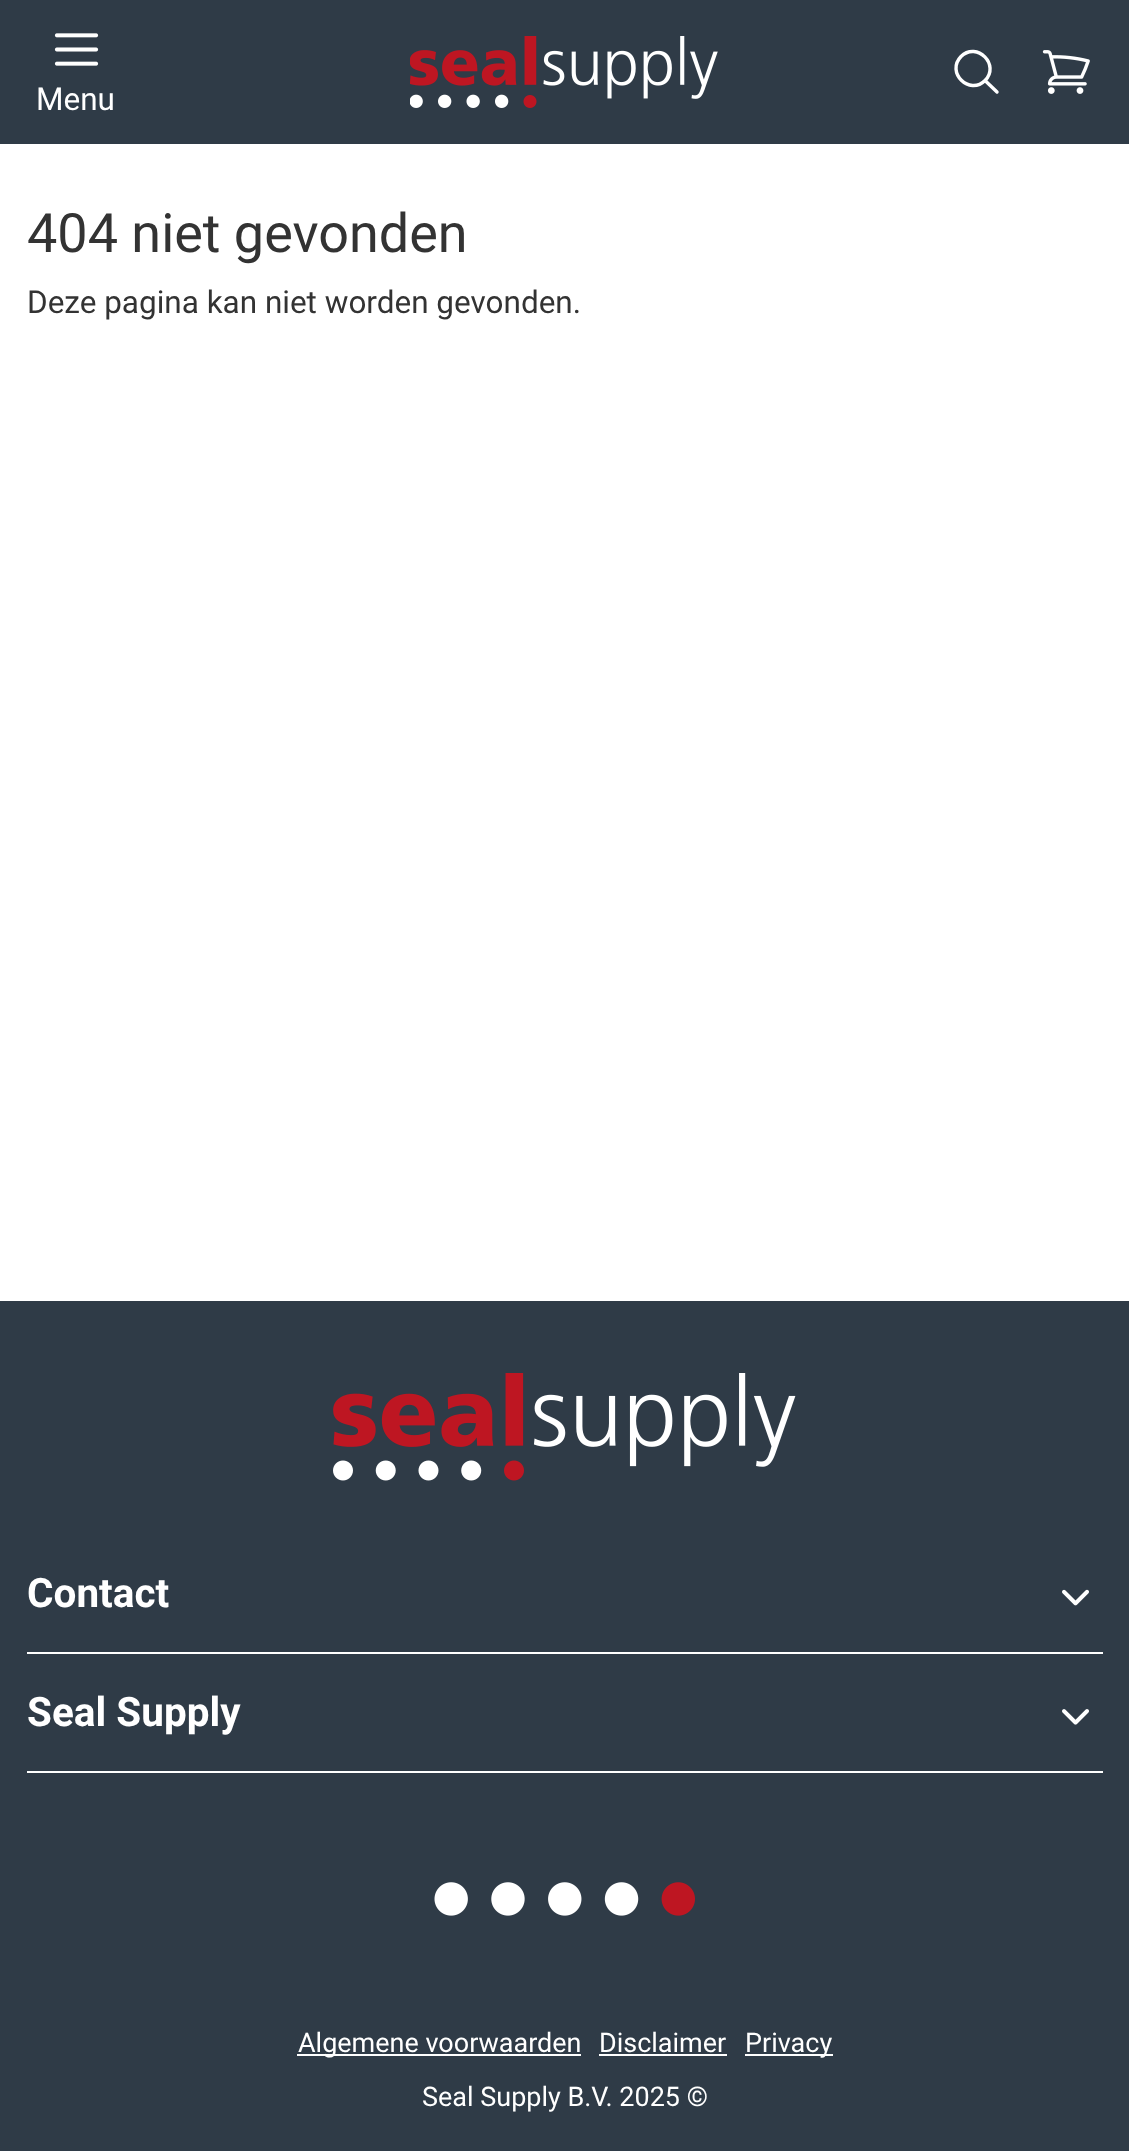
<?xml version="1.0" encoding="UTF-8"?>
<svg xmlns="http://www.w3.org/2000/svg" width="1129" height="2151">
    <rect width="100%" height="100%" fill="#FFFFFF"/>
    <rect x="0" y="0" width="1129" height="144" fill="#2F3B47"/>
    <image x="410" y="36" width="308" height="72" href="img_01.png"/>
    <path d="M 997 92 L 985 80.5 M 985 80.5 C 1000.5 65 977 41 961 56.5 C 945.5 72.5 969.5 96 985 80.5 Z" fill="none" stroke="#FFFFFF" stroke-width="3.4" stroke-linecap="round" stroke-linejoin="round"/>
    <image x="1042" y="50" width="48" height="44" href="img_02.png"/>
    <image x="54" y="33" width="45" height="33" href="img_03.png"/>
    <text x="36" y="110" font-family="Roboto" font-size="31.5" fill="#FFFFFF">Menu</text>
    <text x="27" y="252" font-family="Roboto" font-size="54" fill="#333333">404 niet gevonden</text>
    <text x="27" y="313" font-family="Roboto" font-size="31.5" fill="#333333">Deze pagina kan niet worden gevonden.</text>
    <rect x="0" y="1301" width="1129" height="850" fill="#2F3B47"/>
    <image x="333" y="1373" width="463" height="108" href="img_04.png"/>
    <rect x="27" y="1652" width="1076" height="2" fill="#FFFFFF"/>
    <text x="27" y="1607" font-family="Roboto" font-size="40.5" font-weight="700" fill="#FFFFFF">Contact</text>
    <image x="1062" y="1589" width="27" height="17" href="img_05.png"/>
    <rect x="27" y="1771" width="1076" height="2" fill="#FFFFFF"/>
    <text x="27" y="1726" font-family="Roboto" font-size="40.5" font-weight="700" fill="#FFFFFF">Seal Supply</text>
    <image x="1062" y="1709" width="27" height="16" href="img_06.png"/>
    <image x="434" y="1882" width="261" height="34" href="img_07.png"/>
    <rect x="297" y="2054" width="284" height="2" fill="#FFFFFF"/>
    <text x="298" y="2052" font-family="Roboto" font-size="27" fill="#FFFFFF">Algemene voorwaarden</text>
    <text x="599" y="2052" font-family="Roboto" font-size="27" fill="#FFFFFF">Disclaimer</text>
    <rect x="599" y="2054" width="128" height="2" fill="#FFFFFF"/>
    <rect x="745" y="2054" width="88" height="2" fill="#FFFFFF"/>
    <text x="745" y="2052" font-family="Roboto" font-size="27" fill="#FFFFFF">Privacy</text>
    <text x="422" y="2106" font-family="Roboto" font-size="27" fill="#FFFFFF">Seal Supply B.V. 2025 ©</text>
</svg>
